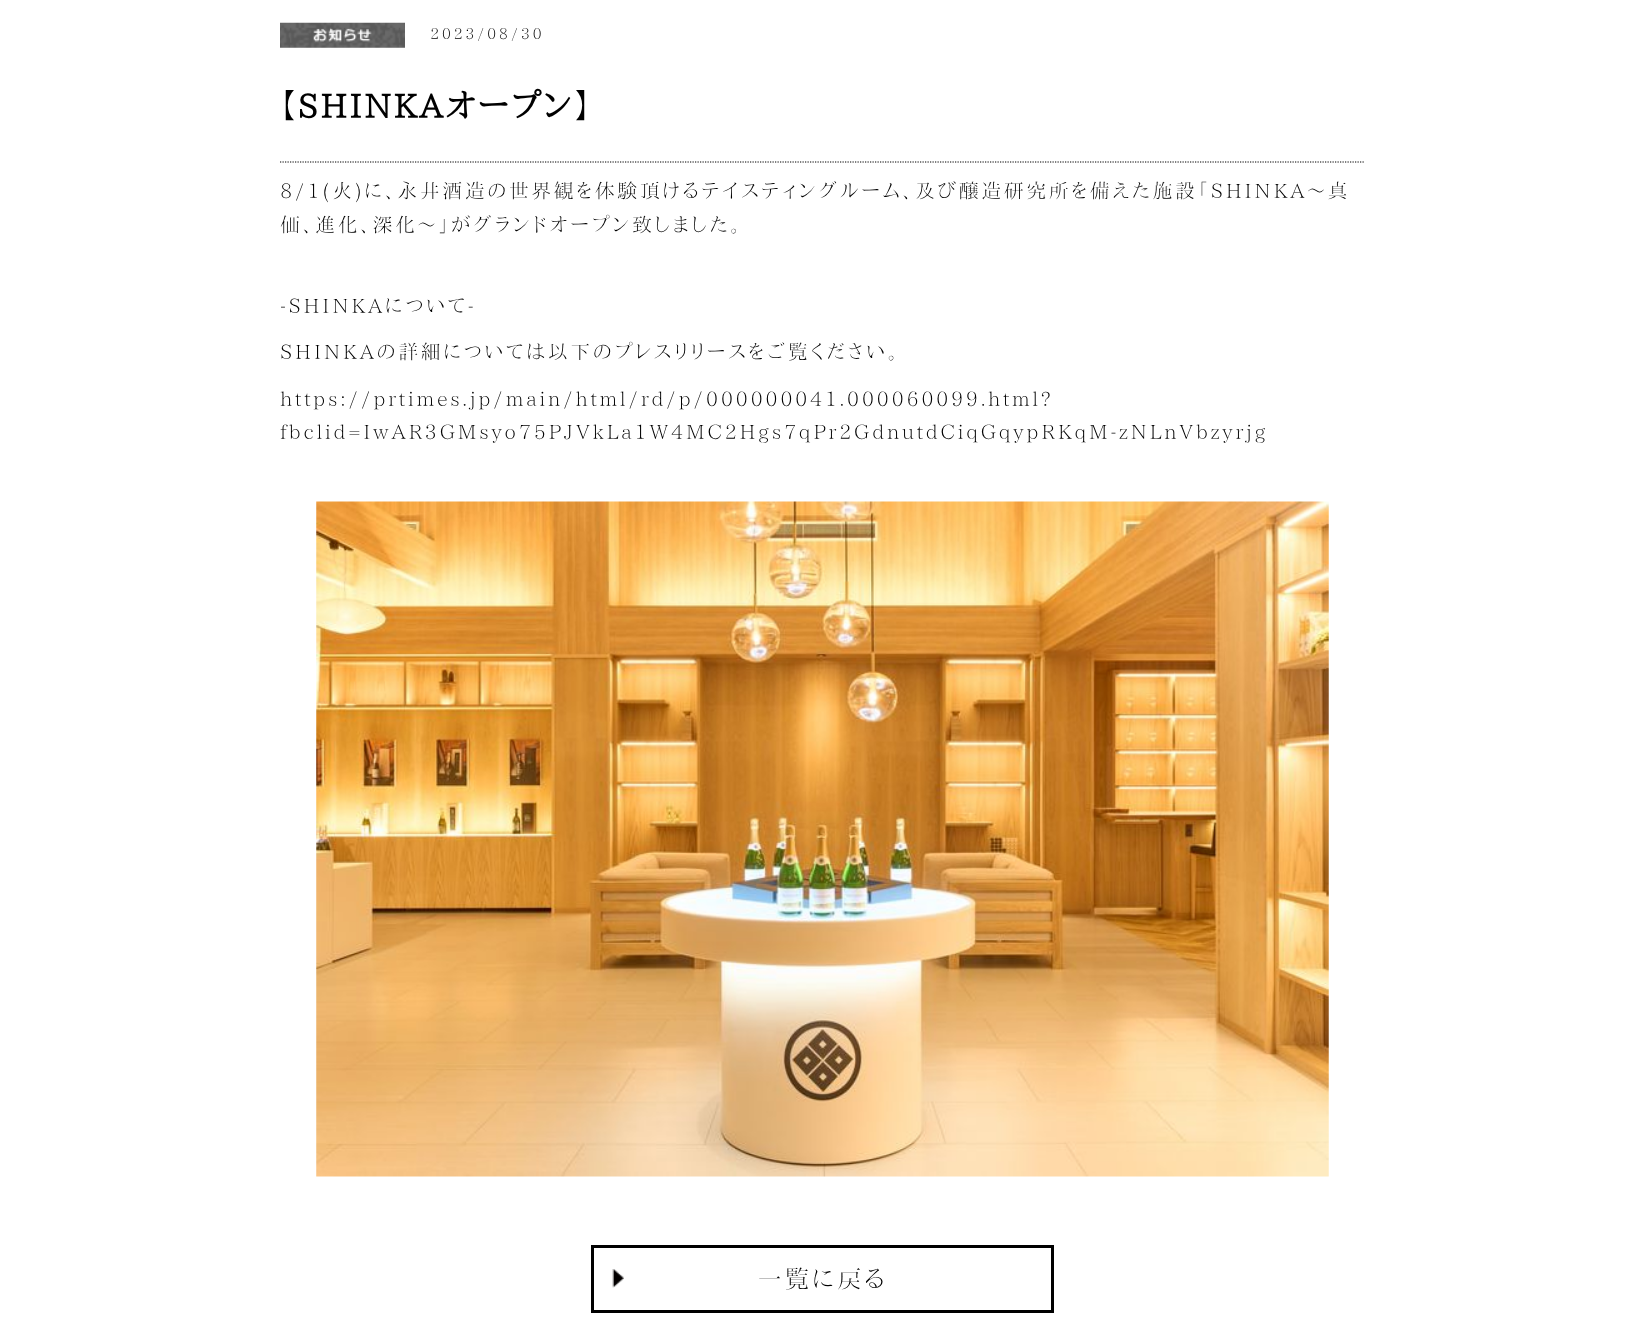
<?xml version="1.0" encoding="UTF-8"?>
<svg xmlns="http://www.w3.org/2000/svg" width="1644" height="1328">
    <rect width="100%" height="100%" fill="#FFFFFF"/>
    <image x="280" y="22" width="125" height="26" href="img_01.png"/>
    <text x="430" y="39" font-family="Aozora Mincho" font-size="15" font-weight="300" letter-spacing="2.5" fill="#000000">2023/08/30</text>
    <path d="M 280 162 H 1365" fill="none" stroke="#000000" stroke-width="1.2" stroke-dasharray="1.25 1.25"/>
    <text x="280" y="118" font-family="Aozora Mincho" font-size="32.5" font-weight="700" letter-spacing="2.5" fill="#000000">【SHINKAオープン】</text>
    <text font-family="Aozora Mincho" font-size="20" font-weight="300" letter-spacing="2.5" fill="#000000">
        <tspan x="280" y="198">8/1(火)に、永井酒造の世界観を体験頂けるテイスティングルーム、及び醸造研究所を備えた施設「SHINKA〜真</tspan>
        <tspan x="280" y="232">価、進化、深化〜」がグランドオープン致しました。</tspan>
    </text>
    <text x="280" y="313" font-family="Aozora Mincho" font-size="20" font-weight="300" letter-spacing="2.5" fill="#000000">-SHINKAについて-</text>
    <text x="280" y="359" font-family="Aozora Mincho" font-size="20" font-weight="300" letter-spacing="2.5" fill="#000000">SHINKAの詳細については以下のプレスリリースをご覧ください。</text>
    <text font-family="Aozora Mincho" font-size="20" font-weight="300" letter-spacing="2.5" fill="#000000">
        <tspan x="280" y="406">https://prtimes.jp/main/html/rd/p/000000041.000060099.html?</tspan>
        <tspan x="280" y="439">fbclid=IwAR3GMsyo75PJVkLa1W4MC2Hgs7qPr2GdnutdCiqGqypRKqM-zNLnVbzyrjg</tspan>
    </text>
    <image x="316" y="501" width="1013" height="676" href="img_02.png"/>
    <image x="612" y="1269" width="12" height="19" href="img_03.png"/>
    <rect x="592.5" y="1246.5" width="460" height="65" fill="none" stroke="#000000" stroke-width="3"/>
    <text x="757" y="1288" font-family="Aozora Mincho" font-size="25" font-weight="300" letter-spacing="2.5" fill="#000000">一覧に戻る</text>
</svg>
